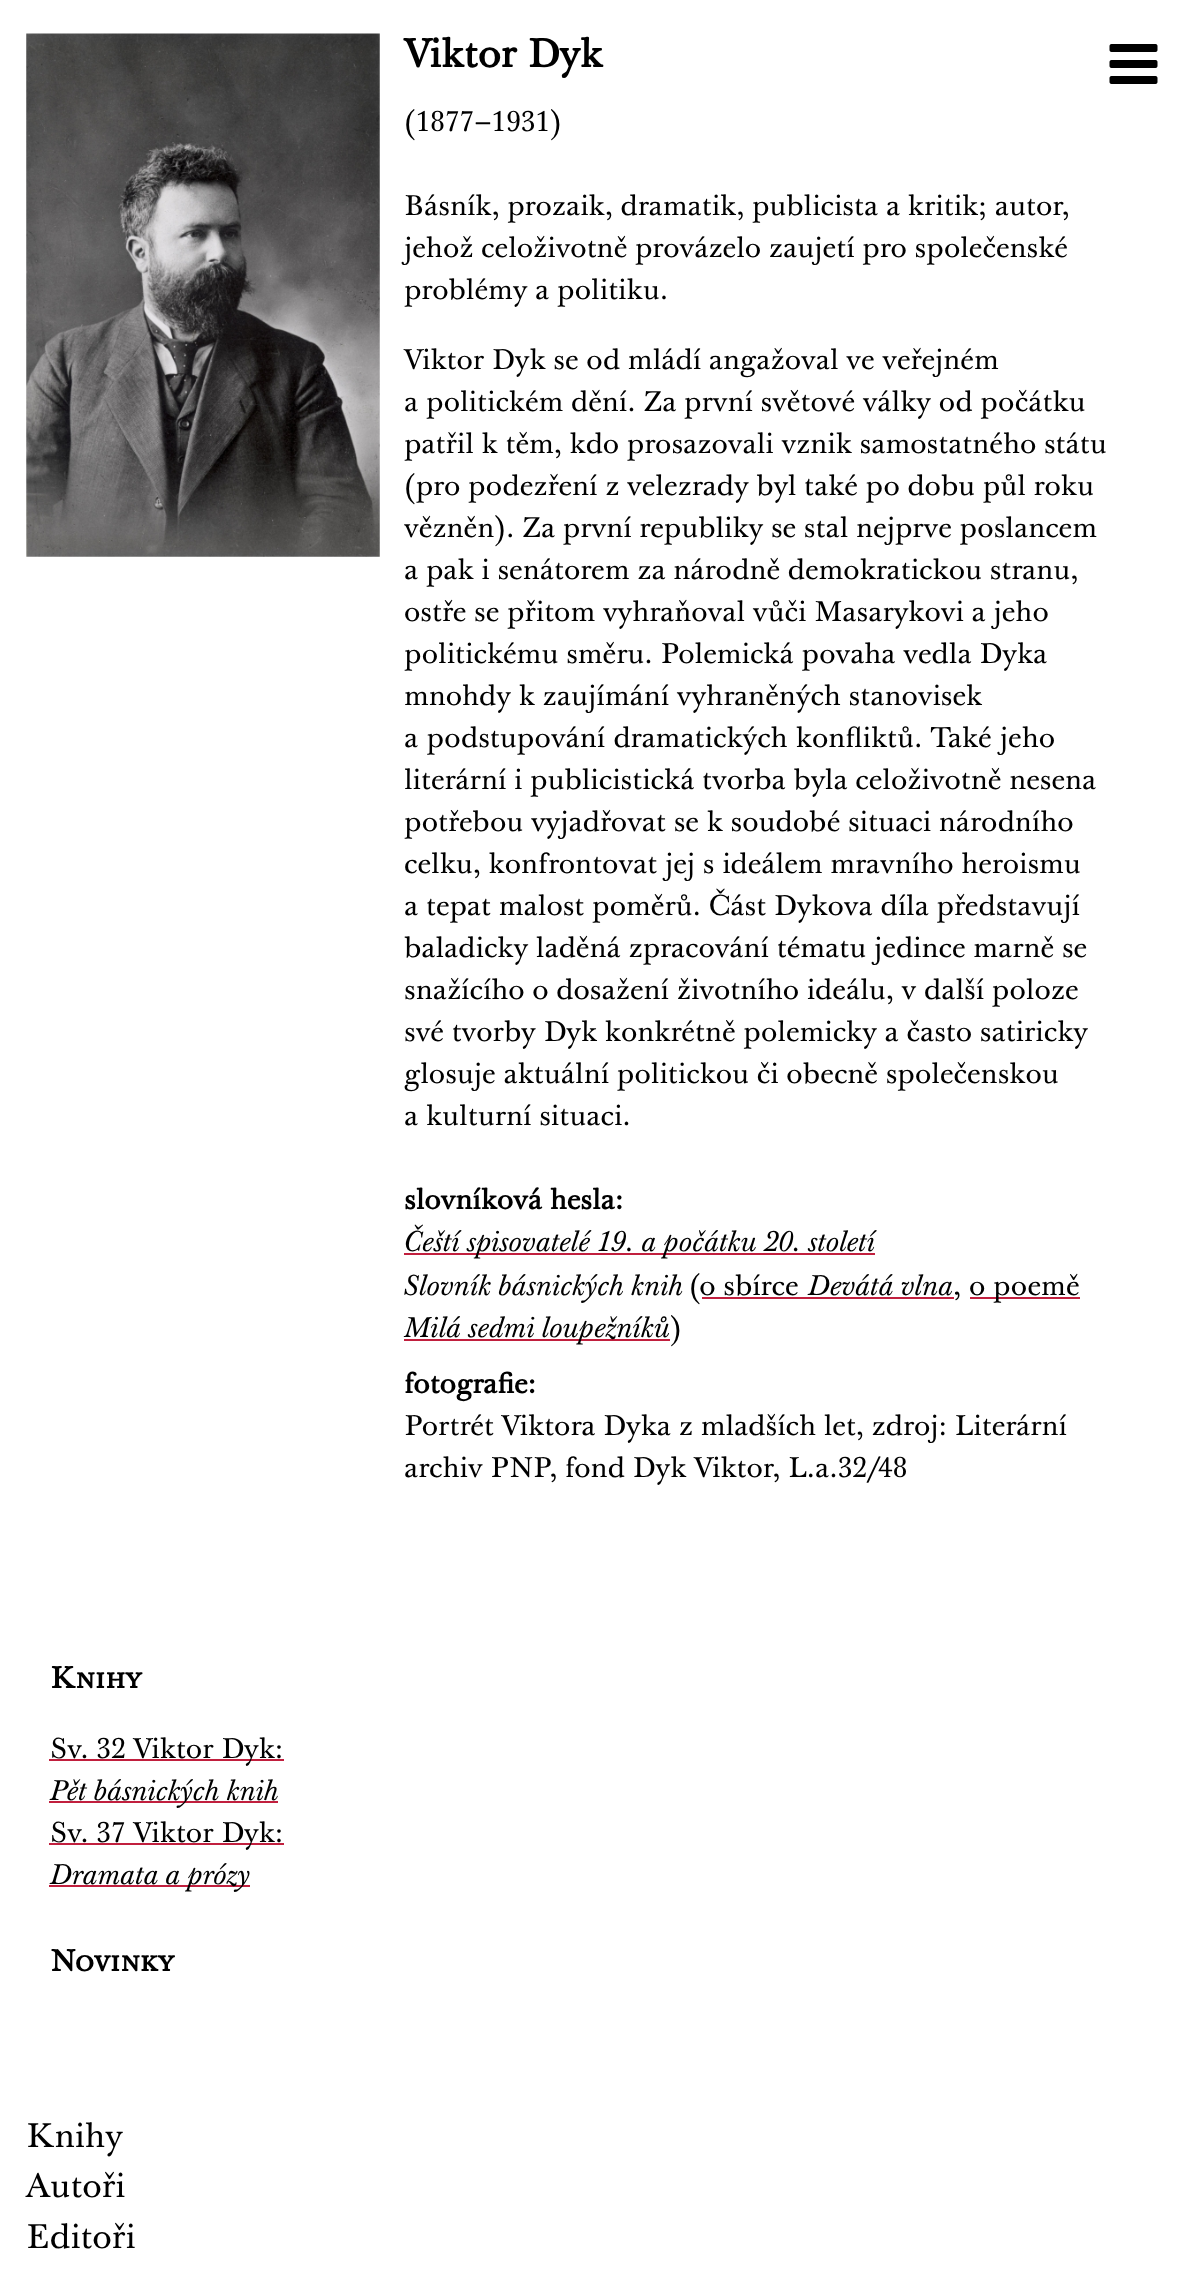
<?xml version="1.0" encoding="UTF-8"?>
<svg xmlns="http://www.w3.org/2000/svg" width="1188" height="2276">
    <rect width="100%" height="100%" fill="#FFFFFF"/>
    <image x="26" y="33" width="354" height="524" href="img_01.png"/>
    <text x="404" y="67" font-family="'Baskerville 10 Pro'" font-size="39.25" font-weight="700" fill="#000000">Viktor Dyk</text>
    <text x="404" y="131" font-family="'Baskerville 10 Pro'" font-size="28" fill="#000000">(1877–1931)</text>
    <text font-family="'Baskerville 10 Pro'" font-size="28" fill="#000000">
        <tspan x="404" y="215">Básník, prozaik, dramatik, publicista a kritik; autor,</tspan>
        <tspan x="404" y="257">jehož celoživotně provázelo zaujetí pro společenské</tspan>
        <tspan x="404" y="299">problémy a politiku.</tspan>
    </text>
    <text font-family="'Baskerville 10 Pro'" font-size="28" fill="#000000">
        <tspan x="404" y="369">Viktor Dyk se od mládí angažoval ve veřejném</tspan>
        <tspan x="404" y="411">a politickém dění. Za první světové války od počátku</tspan>
        <tspan x="404" y="453">patřil k těm, kdo prosazovali vznik samostatného státu</tspan>
        <tspan x="404" y="495">(pro podezření z velezrady byl také po dobu půl roku</tspan>
        <tspan x="404" y="537">vězněn). Za první republiky se stal nejprve poslancem</tspan>
        <tspan x="404" y="579">a pak i senátorem za národně demokratickou stranu,</tspan>
        <tspan x="404" y="621">ostře se přitom vyhraňoval vůči Masarykovi a jeho</tspan>
        <tspan x="404" y="663">politickému směru. Polemická povaha vedla Dyka</tspan>
        <tspan x="404" y="705">mnohdy k zaujímání vyhraněných stanovisek</tspan>
        <tspan x="404" y="747" word-spacing="0.5">a podstupování dramatických konfliktů. Také jeho</tspan>
        <tspan x="404" y="789">literární i publicistická tvorba byla celoživotně nesena</tspan>
        <tspan x="404" y="831">potřebou vyjadřovat se k soudobé situaci národního</tspan>
        <tspan x="404" y="873">celku, konfrontovat jej s ideálem mravního heroismu</tspan>
        <tspan x="404" y="915">a tepat malost poměrů. Část Dykova díla představují</tspan>
        <tspan x="404" y="957">baladicky laděná zpracování tématu jedince marně se</tspan>
        <tspan x="404" y="999">snažícího o dosažení životního ideálu, v další poloze</tspan>
        <tspan x="404" y="1041">své tvorby Dyk konkrétně polemicky a často satiricky</tspan>
        <tspan x="404" y="1083">glosuje aktuální politickou či obecně společenskou</tspan>
        <tspan x="404" y="1125">a kulturní situaci.</tspan>
    </text>
    <text x="404" y="1209" font-family="'Baskerville 10 Pro'" font-size="28" font-weight="700" fill="#000000">slovníková hesla:</text>
    <rect x="404" y="1253" width="471" height="2" fill="#C11F3E"/>
    <text font-family="'Baskerville 10 Pro'" font-size="28" font-style="italic" fill="#000000">
        <tspan x="404" y="1251">Čeští spisovatelé 19. a počátku 20. století</tspan>
        <tspan x="404" y="1295">Slovník básnických knih</tspan>
    </text>
    <text x="689" y="1295" font-family="'Baskerville 10 Pro'" font-size="28" fill="#000000">(o sbírce</text>
    <text x="808" y="1295" font-family="'Baskerville 10 Pro'" font-size="28" font-style="italic" fill="#000000">Devátá vlna</text>
    <rect x="702" y="1297" width="252" height="2" fill="#C11F3E"/>
    <text x="953" y="1295" font-family="'Baskerville 10 Pro'" font-size="28" fill="#000000">,</text>
    <rect x="970" y="1297" width="110" height="2" fill="#C11F3E"/>
    <text x="969" y="1295" font-family="'Baskerville 10 Pro'" font-size="28" fill="#000000">o poemě</text>
    <text x="404" y="1337" font-family="'Baskerville 10 Pro'" font-size="28" font-style="italic" fill="#000000">M</text>
    <rect x="404" y="1339" width="266" height="2" fill="#C11F3E"/>
    <text x="430" y="1337" font-family="'Baskerville 10 Pro'" font-size="28" font-style="italic" fill="#000000">ilá sedmi loupežníků</text>
    <text x="670" y="1337" font-family="'Baskerville 10 Pro'" font-size="28" fill="#000000">)</text>
    <text x="404" y="1393" font-family="'Baskerville 10 Pro'" font-size="28" font-weight="700" fill="#000000">fotografie:</text>
    <text font-family="'Baskerville 10 Pro'" font-size="28" fill="#000000">
        <tspan x="404" y="1435">Portrét Viktora Dyka z mladších let, zdroj: Literární</tspan>
        <tspan x="404" y="1477">archiv PNP, fond Dyk Viktor, L.a.32/48</tspan>
    </text>
    <text x="50" y="1688" font-family="'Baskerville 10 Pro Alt'" font-size="29.75" font-weight="700" fill="#000000">Knihy</text>
    <rect x="49" y="1759" width="235" height="2" fill="#C11F3E"/>
    <text x="50" y="1758" font-family="'Baskerville 10 Pro'" font-size="28" fill="#000000">Sv. 32 Viktor Dyk:</text>
    <rect x="49" y="1801" width="229" height="2" fill="#C11F3E"/>
    <text x="50" y="1800" font-family="'Baskerville 10 Pro'" font-size="28" font-style="italic" fill="#000000">Pět básnických knih</text>
    <rect x="49" y="1843" width="235" height="2" fill="#C11F3E"/>
    <text x="50" y="1842" font-family="'Baskerville 10 Pro'" font-size="28" fill="#000000">Sv. 37 Viktor Dyk:</text>
    <rect x="49" y="1885" width="201" height="2" fill="#C11F3E"/>
    <text x="50" y="1884" font-family="'Baskerville 10 Pro'" font-size="28" font-style="italic" fill="#000000">Dramata a prózy</text>
    <text x="50" y="1971" font-family="'Baskerville 10 Pro Alt'" font-size="29.75" font-weight="700" fill="#000000">Novinky</text>
    <image x="1109" y="44" width="49" height="40" href="img_02.png"/>
    <text font-family="'Baskerville 10 Pro'" font-size="33.5" fill="#000000">
        <tspan x="26" y="2147">Knihy</tspan>
        <tspan x="26" y="2197">Autoři</tspan>
        <tspan x="26" y="2248">Editoři</tspan>
    </text>
</svg>
